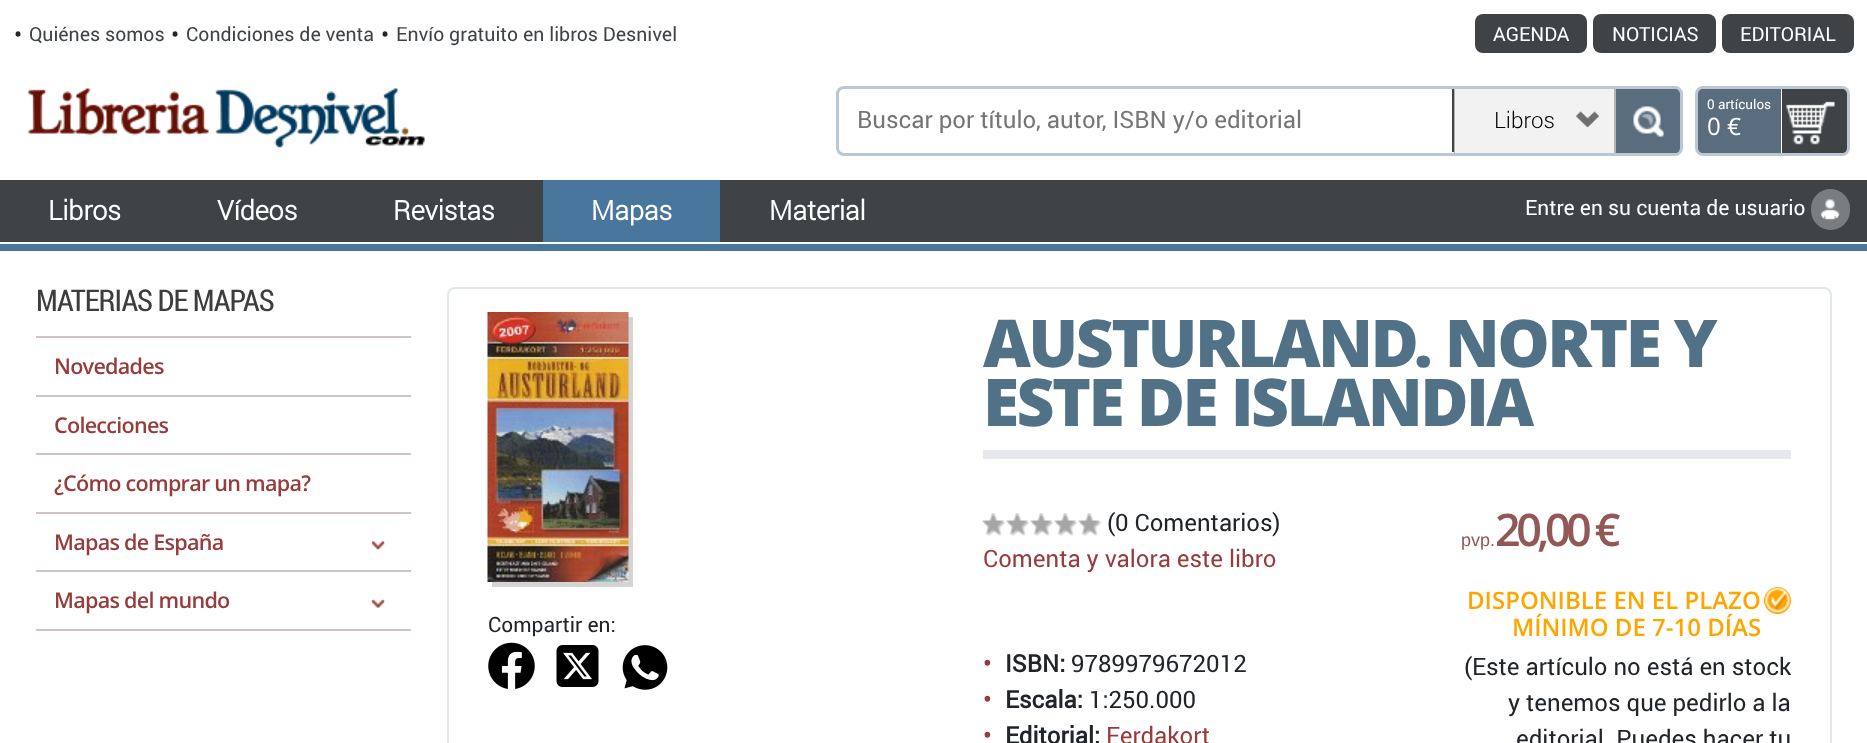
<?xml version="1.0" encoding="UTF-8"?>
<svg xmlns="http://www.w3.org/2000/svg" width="1867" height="743">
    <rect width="100%" height="100%" fill="#FFFFFF"/>
    <rect x="0" y="244" width="1867" height="7" fill="#49769D"/>
    <text x="14" y="43" font-family="Roboto" font-size="24" fill="#212529">•</text>
    <text x="29" y="41" font-family="Roboto" font-size="19.5" fill="#3F4346">Quiénes somos</text>
    <text x="171" y="43" font-family="Roboto" font-size="24" fill="#212529">•</text>
    <text x="186" y="41" font-family="Roboto" font-size="19.5" fill="#3F4346">Condiciones de venta</text>
    <text x="381" y="43" font-family="Roboto" font-size="24" fill="#212529">•</text>
    <text x="396" y="41" font-family="Roboto" font-size="19.5" fill="#3F4346">Envío gratuito en libros Desnivel</text>
    <rect x="1475" y="14" width="112" height="39" rx="8" fill="#3F4346"/>
    <text x="1493" y="41" font-family="Roboto" font-size="19.5" fill="#FFFFFF">AGENDA</text>
    <rect x="1593" y="14" width="123" height="39" rx="8" fill="#3F4346"/>
    <text x="1612" y="41" font-family="Roboto" font-size="19.5" fill="#FFFFFF">NOTICIAS</text>
    <rect x="1722" y="14" width="132" height="39" rx="8" fill="#3F4346"/>
    <text x="1740" y="41" font-family="Roboto" font-size="19.5" fill="#FFFFFF">EDITORIAL</text>
    <image x="28" y="88" width="397" height="60" href="img_01.png"/>
    <rect x="837.5" y="87.5" width="844" height="67" rx="6.5" fill="none" stroke="#BCC7D2" stroke-width="3"/>
    <rect x="1454" y="89" width="1" height="64" fill="#B4B4B4"/>
    <rect x="1452" y="89" width="2" height="63" fill="#3F4346"/>
    <text x="857" y="128" font-family="Roboto" font-size="24" fill="#757575">Buscar por título, autor, ISBN y/o editorial</text>
    <rect x="1614" y="89" width="2" height="64" fill="#B4B4B4"/>
    <rect x="1455" y="89" width="159" height="64" fill="#F2F2F2"/>
    <image x="1575" y="111" width="25" height="17" href="img_02.png"/>
    <text x="1494" y="128" font-family="Roboto" font-size="22.5" font-weight="300" fill="#000000">Libros</text>
    <path d="M 1616 89 H 1675 C 1678 89 1680 91 1680 94 V 148 C 1680 151 1678 153 1675 153 H 1616 Z" fill="#596D7F"/>
    <image x="1633" y="106" width="31" height="31" href="img_03.png"/>
    <rect x="1696.5" y="87.5" width="152" height="67" rx="6.5" fill="none" stroke="#BCC7D2" stroke-width="3"/>
    <path d="M 1703 89 H 1781 V 153 H 1703 C 1700 153 1698 151 1698 148 V 94 C 1698 91 1700 89 1703 89 Z" fill="#596D7F"/>
    <text x="1707" y="109" font-family="Roboto" font-size="13.5" fill="#FFFFFF">0 artículos</text>
    <text x="1707" y="135" font-family="Open Sans" font-size="24" fill="#FFFFFF">0 €</text>
    <path d="M 1782 89 H 1842 C 1845 89 1847 91 1847 94 V 148 C 1847 151 1845 153 1842 153 H 1782 Z" fill="#3F4346"/>
    <image x="1786" y="101" width="49" height="44" href="img_04.png"/>
    <rect x="0" y="180" width="1867" height="62" fill="#3F4346"/>
    <text x="48" y="220" font-family="Roboto" font-size="27" font-weight="700" fill="#FFFFFF">Libros</text>
    <text x="217" y="220" font-family="Roboto" font-size="27" font-weight="700" fill="#FFFFFF">Vídeos</text>
    <text x="393" y="220" font-family="Roboto" font-size="27" font-weight="700" fill="#FFFFFF">Revistas</text>
    <rect x="543" y="180" width="177" height="62" fill="#49769D"/>
    <text x="591" y="220" font-family="Roboto" font-size="27" font-weight="700" fill="#FFFFFF">Mapas</text>
    <text x="769" y="220" font-family="Roboto" font-size="27" font-weight="700" fill="#FFFFFF">Material</text>
    <text x="1525" y="215" font-family="Roboto" font-size="21" fill="#FFFFFF">Entre en su cuenta de usuario</text>
    <rect x="1811" y="189" width="39" height="41" rx="19.5" fill="#7A7D7F"/>
    <image x="1820" y="199" width="20" height="21" href="img_05.png"/>
    <text x="36" y="311" font-family="Roboto Condensed" font-size="30" letter-spacing="-1" fill="#3D3D3D">MATERIAS DE MAPAS</text>
    <rect x="36" y="336" width="375" height="2" fill="#CFC3C3"/>
    <rect x="36" y="395" width="375" height="2" fill="#CFC3C3"/>
    <text x="54" y="374" font-family="Open Sans" font-size="21.6" font-weight="600" letter-spacing="-0.75" fill="#963C3C">Novedades</text>
    <rect x="36" y="453" width="375" height="2" fill="#CFC3C3"/>
    <text x="54" y="433" font-family="Open Sans" font-size="21.6" font-weight="600" letter-spacing="-0.75" fill="#963C3C">Colecciones</text>
    <rect x="36" y="512" width="375" height="2" fill="#CFC3C3"/>
    <text x="54" y="491" font-family="Open Sans" font-size="21.6" font-weight="600" letter-spacing="-0.75" fill="#963C3C">¿Cómo comprar un mapa?</text>
    <rect x="36" y="570" width="375" height="2" fill="#CFC3C3"/>
    <text x="54" y="550" font-family="Open Sans" font-size="21.6" font-weight="600" letter-spacing="-0.75" fill="#963C3C">Mapas de España</text>
    <image x="371" y="541" width="14" height="9" href="img_06.png"/>
    <rect x="36" y="629" width="375" height="2" fill="#CFC3C3"/>
    <text x="54" y="608" font-family="Open Sans" font-size="21.6" font-weight="600" letter-spacing="-0.75" fill="#963C3C">Mapas del mundo</text>
    <image x="371" y="599" width="14" height="9" href="img_07.png"/>
    <rect x="448" y="288" width="1383" height="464" rx="7" fill="none" stroke="#E2E8EB" stroke-width="2"/>
    <rect x="983" y="450" width="808" height="9" fill="#E7E8ED"/>
    <text font-family="Open Sans" font-size="66" font-weight="800" letter-spacing="-2.6" fill="#517186">
        <tspan x="983" y="367">AUSTURLAND. NORTE Y</tspan>
        <tspan x="983" y="426">ESTE DE ISLANDIA</tspan>
    </text>
    <path d="M 492 582 V 587 H 633 V 317 H 628 V 582 Z" fill="#D4D4D4"/>
    <image x="487" y="312" width="142" height="270" href="img_08.png"/>
    <text x="488" y="632" font-family="Roboto" font-size="21" fill="#212529">Compartir en:</text>
    <image x="488" y="642" width="47" height="47" href="img_09.png"/>
    <image x="556" y="645" width="43" height="42" href="img_10.png"/>
    <image x="622" y="645" width="46" height="45" href="img_11.png"/>
    <image x="982" y="513" width="119" height="23" href="img_12.png"/>
    <text x="1107" y="531" font-family="Roboto" font-size="24" fill="#212529">(0 Comentarios)</text>
    <text x="983" y="567" font-family="Roboto" font-size="24" fill="#963C3C">Comenta y valora este libro</text>
    <text x="1461" y="546" font-family="Arimo" font-size="18" fill="#915857">pvp.</text>
    <text x="1495" y="546" font-family="Open Sans" font-size="45" font-weight="600" letter-spacing="-4.5" fill="#915857">20,00 €</text>
    <text x="1467" y="609" font-family="Open Sans" font-size="24" font-weight="600" fill="#FFA500">DISPONIBLE EN EL PLAZO</text>
    <circle cx="1777.5" cy="600.5" r="13.5" fill="#FFA500"/>
    <image x="1765" y="587" width="25" height="26" href="img_13.png"/>
    <text x="1512" y="636" font-family="Open Sans" font-size="24" font-weight="600" fill="#FFA500">MÍNIMO DE 7-10 DÍAS</text>
    <text x="1464" y="675" font-family="Roboto" font-size="24" fill="#212529">(Este artículo no está en stock</text>
    <text x="1508" y="711" font-family="Roboto" font-size="24" fill="#212529">y tenemos que pedirlo a la</text>
    <text x="1516" y="747" font-family="Roboto" font-size="24" fill="#212529">editorial. Puedes hacer tu</text>
    <text x="983" y="672" font-family="'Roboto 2'" font-size="24" font-weight="700" fill="#963C3C">•</text>
    <text x="1005" y="672" font-family="'Roboto 2'" font-size="24" font-weight="700" fill="#212529">ISBN:</text>
    <text x="1071" y="672" font-family="Roboto" font-size="24" fill="#212529">9789979672012</text>
    <text x="983" y="708" font-family="'Roboto 2'" font-size="24" font-weight="700" fill="#963C3C">•</text>
    <text x="1005" y="708" font-family="'Roboto 2'" font-size="24" font-weight="700" fill="#212529">Escala:</text>
    <text x="1089" y="708" font-family="Roboto" font-size="24" fill="#212529">1:250.000</text>
    <text x="983" y="744" font-family="'Roboto 2'" font-size="24" font-weight="700" fill="#963C3C">•</text>
    <text x="1005" y="744" font-family="'Roboto 2'" font-size="24" font-weight="700" fill="#212529">Editorial:</text>
    <text x="1106" y="744" font-family="Roboto" font-size="24" fill="#963C3C">Ferdakort</text>
</svg>
